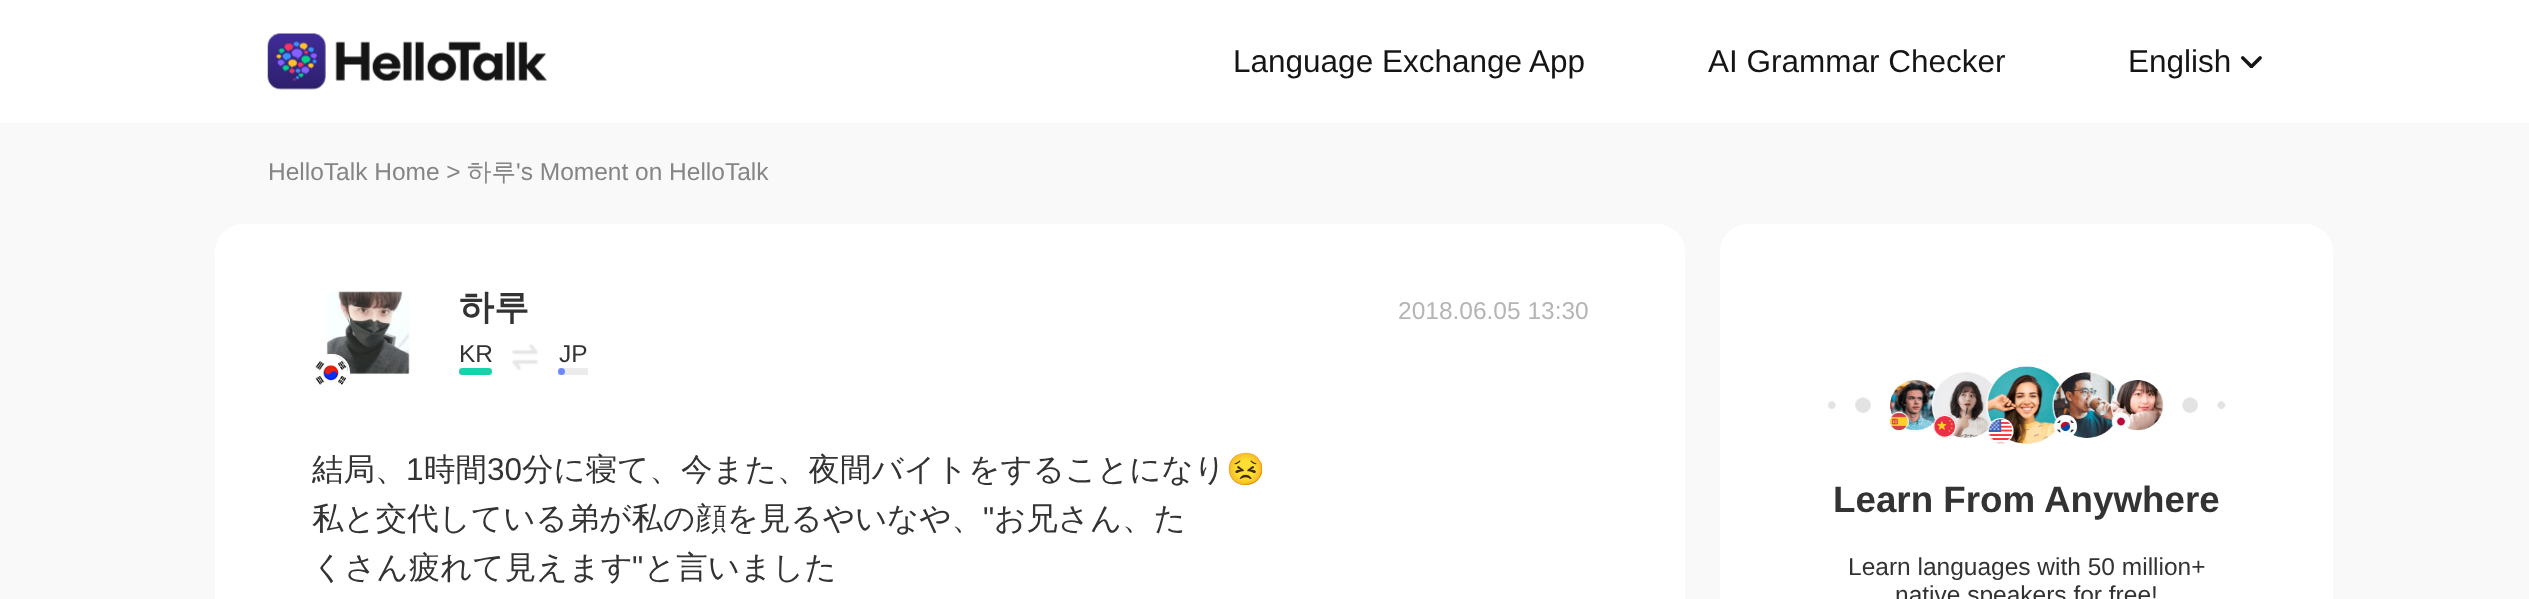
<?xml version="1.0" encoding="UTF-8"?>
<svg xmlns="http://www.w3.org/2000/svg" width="2529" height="599">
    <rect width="100%" height="100%" fill="#F9F9F9"/>
    <rect x="0" y="0" width="2529" height="123" fill="#FFFFFF"/>
    <image x="267" y="33" width="280" height="57" href="img_01.png"/>
    <text x="1233" y="72" font-family="Liberation Sans" font-size="31.5" fill="#151515">Language Exchange App</text>
    <text x="1708" y="72" font-family="Liberation Sans" font-size="31.5" fill="#151515">AI Grammar Checker</text>
    <text x="2128" y="72" font-family="Liberation Sans" font-size="31.5" fill="#151515">English</text>
    <image x="2241" y="56" width="21" height="12" href="img_02.png"/>
    <text x="268" y="180" font-family="Liberation Sans" font-size="24.5" fill="#858585">HelloTalk Home &gt;</text>
    <text x="467" y="180" font-family="WenQuanYi Zen Hei" font-size="24.5" font-weight="500" fill="#858585">하루</text>
    <text x="516" y="180" font-family="Liberation Sans" font-size="24.5" fill="#858585">'s Moment on HelloTalk</text>
    <rect x="215" y="224" width="1470" height="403" rx="28" fill="#FFFFFF"/>
    <image x="326" y="291" width="84" height="84" href="img_03.png"/>
    <rect x="313" y="355" width="36" height="36" rx="17" fill="none" stroke="#FFFFFF" stroke-width="2"/>
    <image x="315" y="356" width="33" height="29" href="img_04.png"/>
    <text x="459" y="319" font-family="WenQuanYi Zen Hei" font-size="35" font-weight="700" fill="#333333">하루</text>
    <text x="459" y="362" font-family="Liberation Sans" font-size="24.5" fill="#333333">KR</text>
    <rect x="459" y="368" width="33" height="7" fill="#ECECEC"/>
    <rect x="459" y="368" width="33" height="7" rx="3.5" fill="#18D2AA"/>
    <image x="512" y="344" width="26" height="26" href="img_05.png"/>
    <text x="559" y="362" font-family="Liberation Sans" font-size="24.5" fill="#333333">JP</text>
    <rect x="558" y="368" width="30" height="7" fill="#ECECEC"/>
    <circle cx="561.5" cy="371.5" r="3.5" fill="#6D89FF"/>
    <text x="1398" y="319" font-family="Liberation Sans" font-size="24.5" fill="#B5B5B5">2018.06.05 13:30</text>
    <text x="312" y="480" font-family="WenQuanYi Zen Hei" font-size="31.5" font-weight="500" fill="#333333">結局、</text>
    <text x="406" y="480" font-family="Liberation Sans" font-size="31.5" fill="#333333">1</text>
    <text x="424" y="480" font-family="WenQuanYi Zen Hei" font-size="31.5" font-weight="500" fill="#333333">時間</text>
    <text x="487" y="480" font-family="Liberation Sans" font-size="31.5" fill="#333333">30</text>
    <text x="522" y="480" font-family="WenQuanYi Zen Hei" font-size="31.5" font-weight="500" fill="#333333">分に寝て、今また、夜間バイトをすることになり</text>
    <text x="1226" y="480" font-family="Noto Color Emoji" font-size="31.5" fill="#333333">😣</text>
    <text x="312" y="529" font-family="WenQuanYi Zen Hei" font-size="31.5" font-weight="500" fill="#333333">私と交代している弟が私の顔を見るやいなや、</text>
    <text x="983" y="529" font-family="Liberation Sans" font-size="31.5" fill="#333333">"</text>
    <text x="994" y="529" font-family="WenQuanYi Zen Hei" font-size="31.5" font-weight="500" fill="#333333">お兄さん、た</text>
    <text x="312" y="578" font-family="WenQuanYi Zen Hei" font-size="31.5" font-weight="500" fill="#333333">くさん疲れて見えます</text>
    <text x="632" y="578" font-family="Liberation Sans" font-size="31.5" fill="#333333">"</text>
    <text x="644" y="578" font-family="WenQuanYi Zen Hei" font-size="31.5" font-weight="500" fill="#333333">と言いました</text>
    <rect x="1720" y="224" width="613" height="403" rx="28" fill="#FFFFFF"/>
    <image x="1828" y="366" width="398" height="78" href="img_06.png"/>
    <text x="1833" y="512" font-family="Liberation Sans" font-size="36.75" font-weight="700" fill="#333333">Learn From Anywhere</text>
    <text x="1848" y="575" font-family="Liberation Sans" font-size="24.5" fill="#333333">Learn languages with 50 million+</text>
    <text x="1895" y="603" font-family="Liberation Sans" font-size="24.5" fill="#333333">native speakers for free!</text>
</svg>
